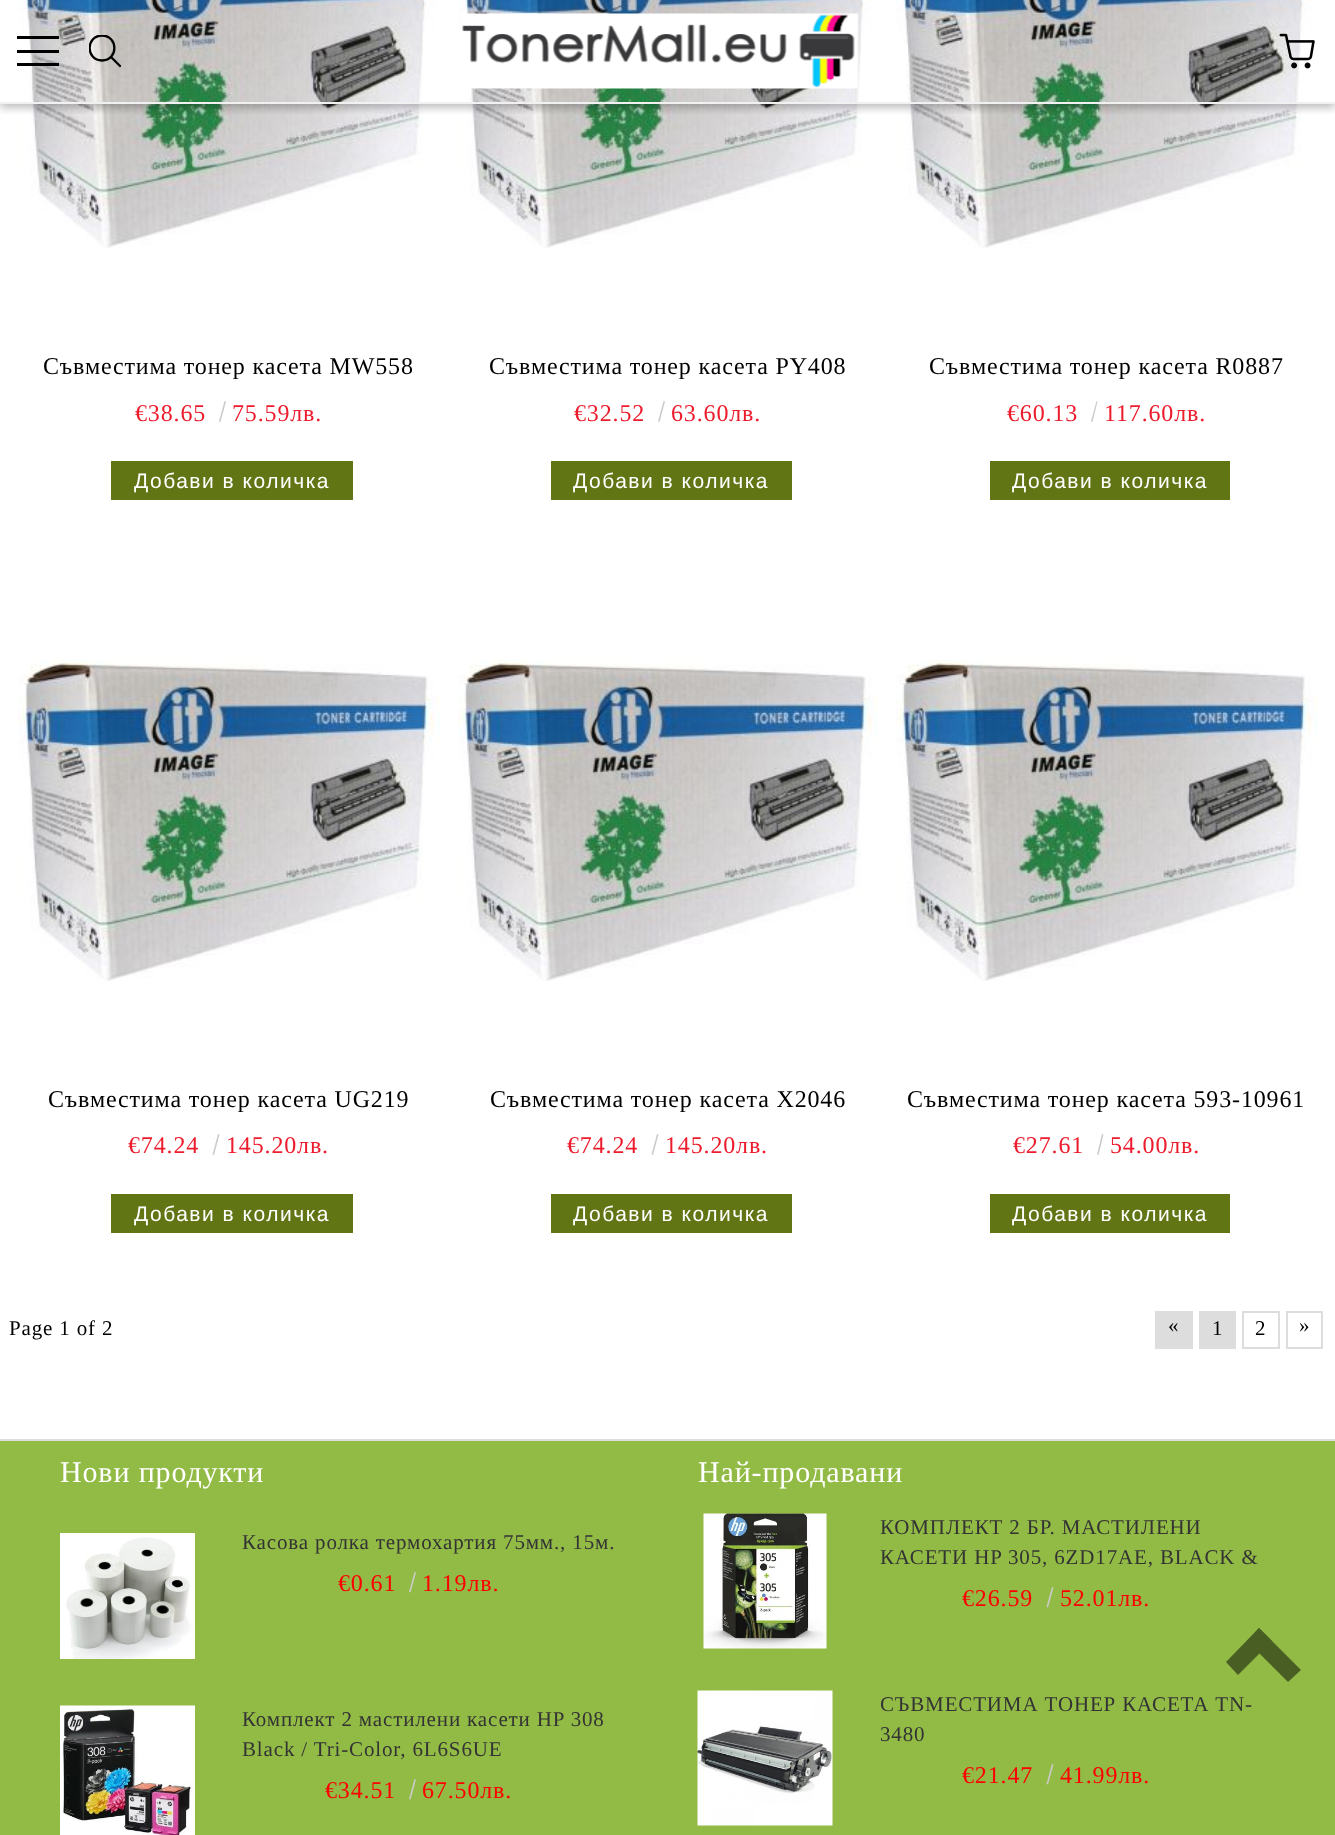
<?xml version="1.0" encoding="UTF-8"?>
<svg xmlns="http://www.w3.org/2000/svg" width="1335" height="1835">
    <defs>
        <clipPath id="clip1"><rect x="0" y="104" width="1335" height="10"/></clipPath>
        <filter id="blur1" x="-50%" y="-200%" width="200%" height="500%"><feGaussianBlur stdDeviation="4"/></filter>
        <clipPath id="clip2"><rect x="89" y="35" width="33" height="33"/></clipPath>
        <clipPath id="clip3"><rect x="881" y="1691" width="394" height="60"/></clipPath>
    </defs>
    <rect width="100%" height="100%" fill="#92BB46"/>
    <rect x="0" y="0" width="1335" height="1439" fill="#FFFFFF"/>
    <image x="18" y="0" width="421" height="248" href="img_03.png"/>
    <image x="458" y="0" width="419" height="248" href="img_04.png"/>
    <image x="896" y="0" width="421" height="248" href="img_05.png"/>
    <g clip-path="url(#clip1)">
        <rect x="0" y="5" width="1335" height="103" fill="#000000" fill-opacity="0.25" filter="url(#blur1)"/>
    </g>
    <rect x="0" y="102" width="1335" height="2" fill="#F1F1F1"/>
    <rect x="17" y="36" width="42" height="3" fill="#000000"/>
    <rect x="17" y="50" width="42" height="3" fill="#000000"/>
    <rect x="17" y="63" width="42" height="3" fill="#000000"/>
    <g clip-path="url(#clip2)">
        <path d="M 102 35.5 C 85.5 35.5 85.5 60.5 102 60.5 C 118.5 60.5 118.5 35.5 102 35.5 Z" fill="none" stroke="#000000" stroke-width="2.3"/>
    </g>
    <path d="M 111 57 L 120 66" fill="none" stroke="#000000" stroke-width="2.3" stroke-linecap="round"/>
    <image x="462" y="13" width="397" height="76" href="img_01.png"/>
    <image x="1279" y="33" width="36" height="36" href="img_02.png"/>
    <text x="43" y="374" font-family="Liberation Serif" font-size="24" letter-spacing="0.85" fill="#000000">Съвместима тонер касета MW558</text>
    <text x="135" y="421" font-family="Liberation Serif" font-size="24" letter-spacing="0.85" fill="#ED1C2D">€38.65</text>
    <path d="M 224.5 401 L 226 401.5 L 220.5 422 L 219 421.5 Z" fill="#CBCBCB"/>
    <text x="232" y="421" font-family="Liberation Serif" font-size="24" letter-spacing="0.85" fill="#ED1C2D">75.59лв.</text>
    <rect x="111" y="461" width="242" height="39" fill="#627515"/>
    <text x="134" y="488" font-family="Liberation Sans" font-size="21" letter-spacing="1.5" fill="#FFFFFF">Добави в количка</text>
    <text x="489" y="374" font-family="Liberation Serif" font-size="24" letter-spacing="0.85" fill="#000000">Съвместима тонер касета PY408</text>
    <text x="574" y="421" font-family="Liberation Serif" font-size="24" letter-spacing="0.85" fill="#ED1C2D">€32.52</text>
    <path d="M 663.5 401 L 665 401.5 L 659.5 422 L 658 421.5 Z" fill="#CBCBCB"/>
    <text x="671" y="421" font-family="Liberation Serif" font-size="24" letter-spacing="0.85" fill="#ED1C2D">63.60лв.</text>
    <rect x="551" y="461" width="241" height="39" fill="#627515"/>
    <text x="573" y="488" font-family="Liberation Sans" font-size="21" letter-spacing="1.5" fill="#FFFFFF">Добави в количка</text>
    <text x="929" y="374" font-family="Liberation Serif" font-size="24" letter-spacing="0.85" fill="#000000">Съвместима тонер касета R0887</text>
    <text x="1007" y="421" font-family="Liberation Serif" font-size="24" letter-spacing="0.85" fill="#ED1C2D">€60.13</text>
    <path d="M 1096.5 401 L 1097.5 401.5 L 1092.5 422 L 1091 421.5 Z" fill="#CBCBCB"/>
    <text x="1104" y="421" font-family="Liberation Serif" font-size="24" letter-spacing="0.85" fill="#ED1C2D">117.60лв.</text>
    <rect x="990" y="461" width="240" height="39" fill="#627515"/>
    <text x="1012" y="488" font-family="Liberation Sans" font-size="21" letter-spacing="1.5" fill="#FFFFFF">Добави в количка</text>
    <image x="18" y="659" width="422" height="322" href="img_06.png"/>
    <text x="48" y="1107" font-family="Liberation Serif" font-size="24" letter-spacing="0.85" fill="#000000">Съвместима тонер касета UG219</text>
    <text x="128" y="1153" font-family="Liberation Serif" font-size="24" letter-spacing="0.85" fill="#ED1C2D">€74.24</text>
    <path d="M 218 1134 L 219.5 1134.5 L 214 1155 L 212.5 1154.5 Z" fill="#CBCBCB"/>
    <text x="226" y="1153" font-family="Liberation Serif" font-size="24" letter-spacing="0.85" fill="#ED1C2D">145.20лв.</text>
    <rect x="111" y="1194" width="242" height="39" fill="#627515"/>
    <text x="134" y="1221" font-family="Liberation Sans" font-size="21" letter-spacing="1.5" fill="#FFFFFF">Добави в количка</text>
    <image x="458" y="659" width="420" height="322" href="img_07.png"/>
    <text x="490" y="1107" font-family="Liberation Serif" font-size="24" letter-spacing="0.85" fill="#000000">Съвместима тонер касета X2046</text>
    <text x="567" y="1153" font-family="Liberation Serif" font-size="24" letter-spacing="0.85" fill="#ED1C2D">€74.24</text>
    <path d="M 657 1134 L 658.5 1134.5 L 653 1155 L 651.5 1154.5 Z" fill="#CBCBCB"/>
    <text x="665" y="1153" font-family="Liberation Serif" font-size="24" letter-spacing="0.85" fill="#ED1C2D">145.20лв.</text>
    <rect x="551" y="1194" width="241" height="39" fill="#627515"/>
    <text x="573" y="1221" font-family="Liberation Sans" font-size="21" letter-spacing="1.5" fill="#FFFFFF">Добави в количка</text>
    <image x="896" y="660" width="421" height="321" href="img_08.png"/>
    <text x="907" y="1107" font-family="Liberation Serif" font-size="24" letter-spacing="0.85" fill="#000000">Съвместима тонер касета 593-10961</text>
    <text x="1013" y="1153" font-family="Liberation Serif" font-size="24" letter-spacing="0.85" fill="#ED1C2D">€27.61</text>
    <path d="M 1102 1134 L 1103.5 1134.5 L 1098.5 1155 L 1097 1154.5 Z" fill="#CBCBCB"/>
    <text x="1110" y="1153" font-family="Liberation Serif" font-size="24" letter-spacing="0.85" fill="#ED1C2D">54.00лв.</text>
    <rect x="990" y="1194" width="240" height="39" fill="#627515"/>
    <text x="1012" y="1221" font-family="Liberation Sans" font-size="21" letter-spacing="1.5" fill="#FFFFFF">Добави в количка</text>
    <text x="9" y="1335" font-family="Liberation Serif" font-size="21" letter-spacing="0.85" fill="#000000">Page 1 of 2</text>
    <rect x="1155" y="1311" width="38" height="38" fill="#DDDDDD"/>
    <text x="1168" y="1332" font-family="Liberation Serif" font-size="21" letter-spacing="0.85" fill="#000000">«</text>
    <rect x="1199" y="1311" width="37" height="38" fill="#DDDDDD"/>
    <text x="1212" y="1335" font-family="Liberation Serif" font-size="21" letter-spacing="0.85" fill="#000000">1</text>
    <rect x="1243" y="1312" width="36" height="36" fill="none" stroke="#DDDDDD" stroke-width="2"/>
    <text x="1255" y="1335" font-family="Liberation Serif" font-size="21" letter-spacing="0.85" fill="#000000">2</text>
    <rect x="1287" y="1312" width="35" height="36" fill="none" stroke="#DDDDDD" stroke-width="2"/>
    <text x="1299" y="1332" font-family="Liberation Serif" font-size="21" letter-spacing="0.85" fill="#000000">»</text>
    <rect x="0" y="1439" width="1335" height="2" fill="#DDDDDD"/>
    <text x="60" y="1482" font-family="Liberation Serif" font-size="30" letter-spacing="0.85" fill="#FFFFFF">Нови продукти</text>
    <image x="60" y="1533" width="135" height="126" href="img_09.png"/>
    <text x="242" y="1549" font-family="Liberation Serif" font-size="21" letter-spacing="0.85" fill="#333333">Касова ролка термохартия 75мм., 15м.</text>
    <text x="338" y="1591" font-family="Liberation Serif" font-size="24" letter-spacing="0.85" fill="#FF0000">€0.61</text>
    <path d="M 414.5 1572 L 416 1572.5 L 410.5 1592.5 L 409 1592 Z" fill="#CBCBCB"/>
    <text x="422" y="1591" font-family="Liberation Serif" font-size="24" letter-spacing="0.85" fill="#FF0000">1.19лв.</text>
    <image x="60" y="1705" width="135" height="130" href="img_10.png"/>
    <text font-family="Liberation Serif" font-size="21" letter-spacing="0.85" fill="#333333">
        <tspan x="242" y="1726">Комплект 2 мастилени касети HP 308</tspan>
        <tspan x="242" y="1756">Black / Tri-Color, 6L6S6UE</tspan>
    </text>
    <text x="325" y="1798" font-family="Liberation Serif" font-size="24" letter-spacing="0.85" fill="#FF0000">€34.51</text>
    <path d="M 414.5 1779 L 416 1779.5 L 410.5 1799.5 L 409 1799 Z" fill="#CBCBCB"/>
    <text x="422" y="1798" font-family="Liberation Serif" font-size="24" letter-spacing="0.85" fill="#FF0000">67.50лв.</text>
    <text x="698" y="1482" font-family="Liberation Serif" font-size="30" letter-spacing="0.85" fill="#FFFFFF">Най-продавани</text>
    <image x="703" y="1513" width="124" height="136" href="img_11.png"/>
    <text font-family="Liberation Serif" font-size="21" letter-spacing="0.85" fill="#333333">
        <tspan x="880" y="1534">КОМПЛЕКТ 2 БР. МАСТИЛЕНИ</tspan>
        <tspan x="880" y="1564">КАСЕТИ HP 305, 6ZD17AE, BLACK &amp;</tspan>
    </text>
    <text x="962" y="1606" font-family="Liberation Serif" font-size="24" letter-spacing="0.85" fill="#FF0000">€26.59</text>
    <path d="M 1052 1587 L 1053.5 1587.5 L 1048 1607.5 L 1046.5 1607 Z" fill="#CBCBCB"/>
    <text x="1060" y="1606" font-family="Liberation Serif" font-size="24" letter-spacing="0.85" fill="#FF0000">52.01лв.</text>
    <image x="697" y="1690" width="136" height="136" href="img_12.png"/>
    <g clip-path="url(#clip3)">
        <text font-family="Liberation Serif" font-size="21" letter-spacing="0.85" fill="#333333">
            <tspan x="880" y="1711">СЪВМЕСТИМА ТОНЕР КАСЕТА TN-</tspan>
            <tspan x="880" y="1741">3480</tspan>
        </text>
    </g>
    <text x="962" y="1783" font-family="Liberation Serif" font-size="24" letter-spacing="0.85" fill="#FF0000">€21.47</text>
    <path d="M 1052 1764 L 1053.5 1764.5 L 1048 1784.5 L 1046.5 1784 Z" fill="#CBCBCB"/>
    <text x="1060" y="1783" font-family="Liberation Serif" font-size="24" letter-spacing="0.85" fill="#FF0000">41.99лв.</text>
    <path d="M 1238 1675 L 1226 1662 L 1259 1628 L 1272 1641 Z" fill="#495E23"/>
    <path d="M 1288 1682 L 1247 1641 L 1259 1628 L 1301 1670 Z" fill="#495E23"/>
</svg>
